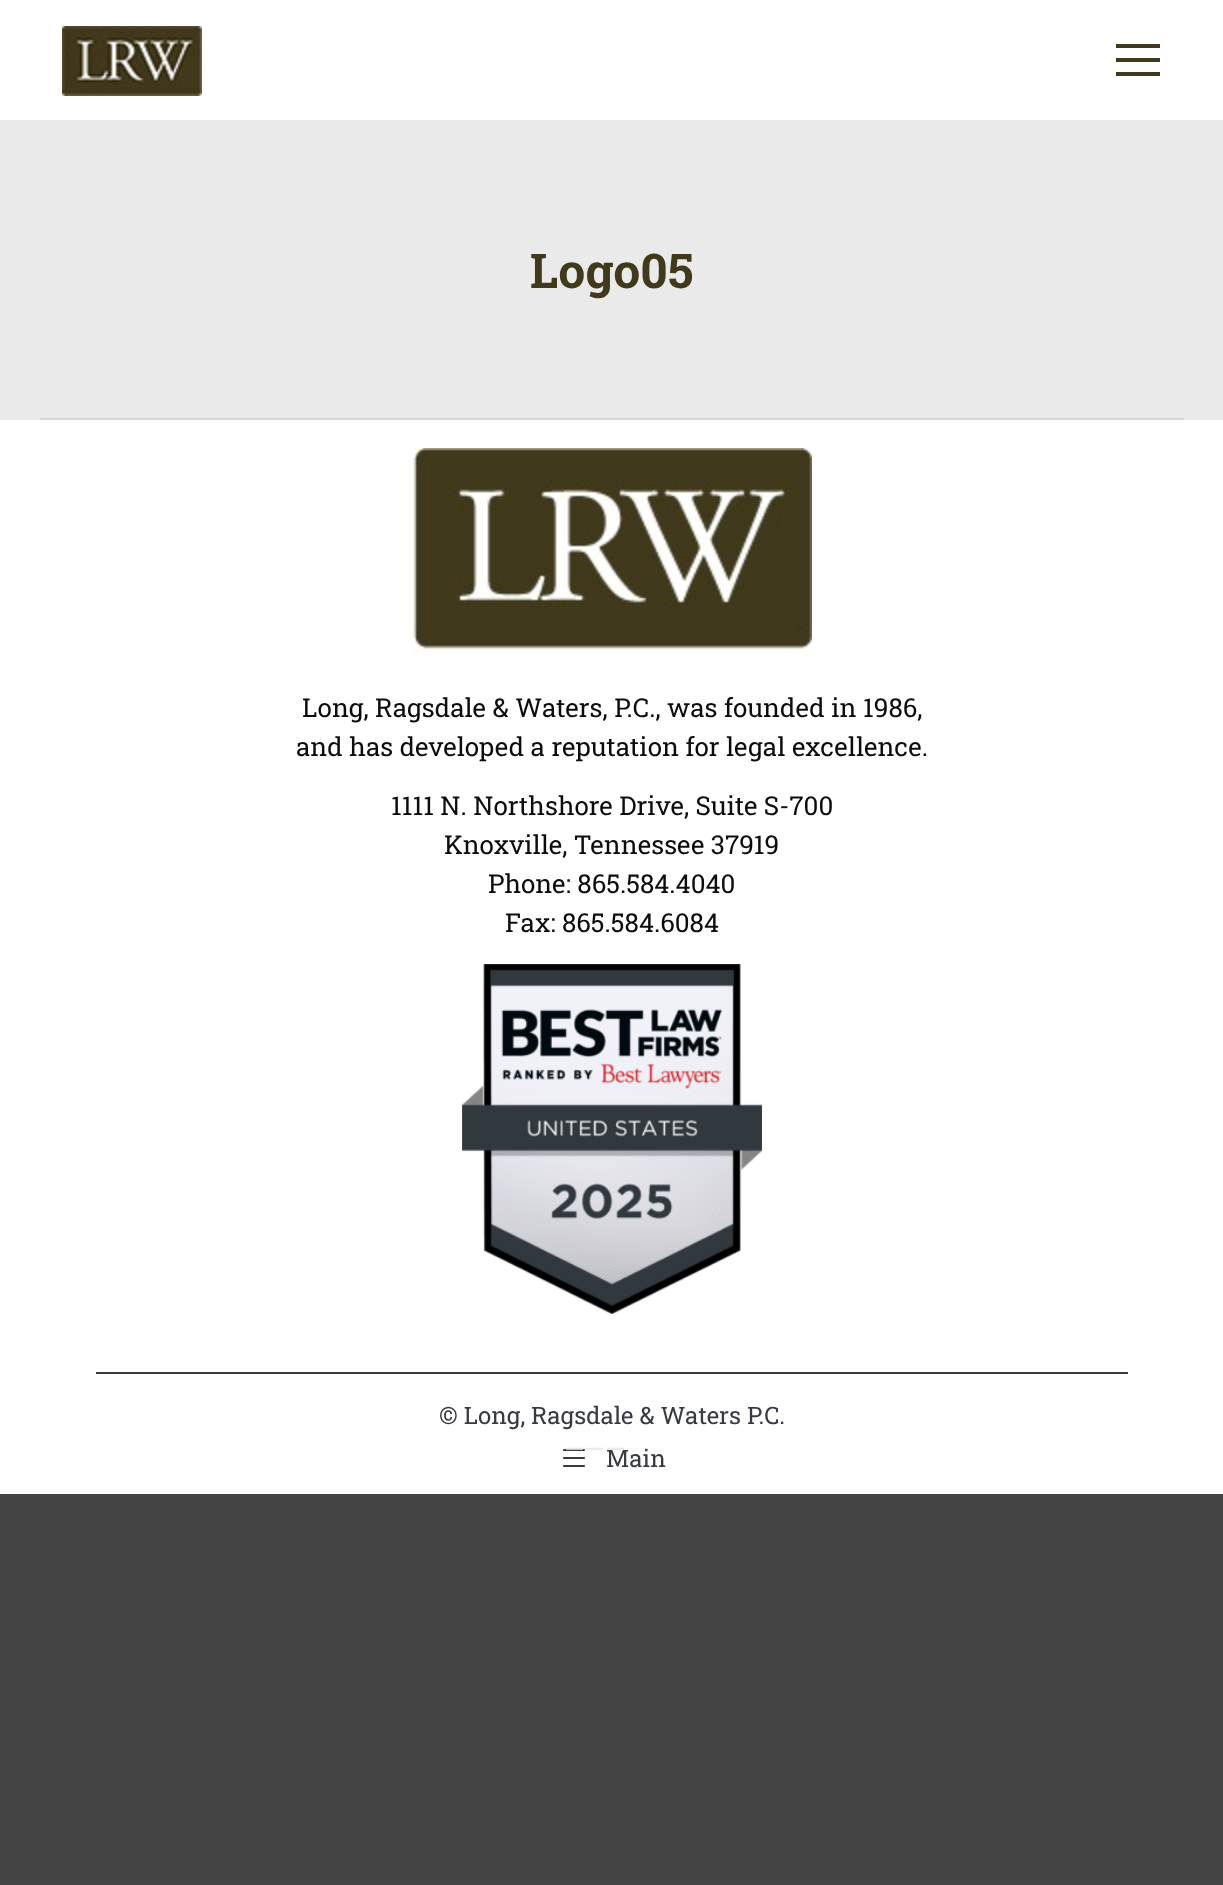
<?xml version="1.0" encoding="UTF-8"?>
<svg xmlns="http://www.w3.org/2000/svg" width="1223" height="1885">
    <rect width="100%" height="100%" fill="#444444"/>
    <rect x="0" y="120" width="1223" height="300" fill="#EAEAEA"/>
    <rect x="0" y="0" width="1223" height="120" fill="#FFFFFF"/>
    <image x="62" y="26" width="140" height="70" href="img_01.png"/>
    <rect x="1116" y="44" width="44" height="4" fill="#41391B"/>
    <rect x="1116" y="58" width="44" height="4" fill="#41391B"/>
    <rect x="1116" y="72" width="44" height="4" fill="#41391B"/>
    <text x="530" y="288" font-family="Roboto Slab" font-size="48" font-weight="700" fill="#41391B">Logo05</text>
    <rect x="40" y="418" width="1144" height="2" fill="#D6D6D6"/>
    <rect x="0" y="420" width="1223" height="1074" fill="#FFFFFF"/>
    <image x="412" y="448" width="400" height="204" href="img_02.png"/>
    <text x="302" y="717" font-family="Roboto Slab" font-size="26" fill="#0C0C0C">Long, Ragsdale &amp; Waters, P.C., was founded in 1986,</text>
    <text x="296" y="756" font-family="Roboto Slab" font-size="26" fill="#0C0C0C">and has developed a reputation for legal excellence.</text>
    <text x="391" y="815" font-family="Roboto Slab" font-size="26" fill="#0C0C0C">1111 N. Northshore Drive, Suite S-700</text>
    <text x="444" y="854" font-family="Roboto Slab" font-size="26" fill="#0C0C0C">Knoxville, Tennessee 37919</text>
    <text x="488" y="893" font-family="Roboto Slab" font-size="26" fill="#0C0C0C">Phone: 865.584.4040</text>
    <text x="505" y="932" font-family="Roboto Slab" font-size="26" fill="#0C0C0C">Fax: 865.584.6084</text>
    <image x="462" y="964" width="300" height="350" href="img_03.png"/>
    <rect x="96" y="1372" width="1032" height="2" fill="#373A41"/>
    <text x="439" y="1424" font-family="Roboto Slab" font-size="24" fill="#373A41">© Long, Ragsdale &amp; Waters P.C.</text>
    <text x="606" y="1467" font-family="Roboto Slab" font-size="24" fill="#373A41">Main</text>
    <image x="563" y="1449" width="22" height="18" href="img_04.png"/>
    <text x="564" y="1458" font-family="Roboto Slab" font-size="26" fill="#E8E8E9">———</text>
</svg>
